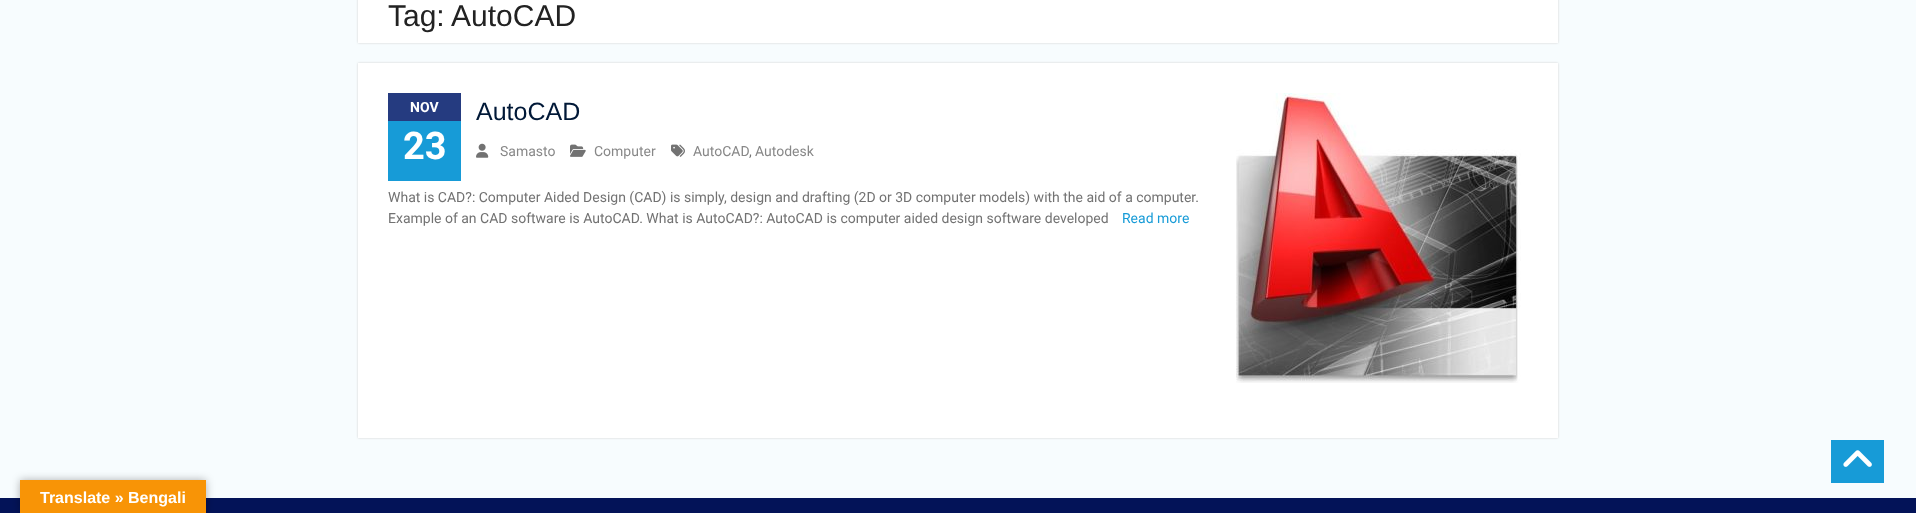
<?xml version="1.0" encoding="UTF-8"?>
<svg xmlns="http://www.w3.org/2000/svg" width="1916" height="513">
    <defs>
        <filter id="blur1" x="-50%" y="-200%" width="200%" height="500%"><feGaussianBlur stdDeviation="1"/></filter>
        <filter id="blur2" x="-50%" y="-200%" width="200%" height="500%"><feGaussianBlur stdDeviation="4.5"/></filter>
    </defs>
    <rect width="100%" height="100%" fill="#F7FCFE"/>
    <rect x="358" y="-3" width="1200" height="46" fill="#CFCFCF" filter="url(#blur1)"/>
    <rect x="358" y="0" width="1200" height="43" fill="#FFFFFF"/>
    <text x="388" y="26" font-family="Liberation Sans" font-size="30" fill="#222222">Tag:</text>
    <text x="451" y="26" font-family="Liberation Sans" font-size="30" fill="#222222">AutoCAD</text>
    <rect x="358" y="63" width="1200" height="375" fill="#CFCFCF" filter="url(#blur1)"/>
    <rect x="358" y="63" width="1200" height="375" fill="#FFFFFF"/>
    <rect x="388" y="93" width="73" height="28" fill="#253B80"/>
    <text x="410" y="112" font-family="Roboto" font-size="14" font-weight="700" fill="#FFFFFF">NOV</text>
    <rect x="388" y="121" width="73" height="60" fill="#179BD7"/>
    <text x="403" y="159" font-family="Roboto" font-size="38" font-weight="700" fill="#FFFFFF">23</text>
    <text x="476" y="120" font-family="Liberation Sans" font-size="25" fill="#001837">AutoCAD</text>
    <image x="476" y="143" width="13" height="15" href="img_01.png"/>
    <text x="500" y="156" font-family="Roboto" font-size="14" fill="#888888">Samasto</text>
    <image x="570" y="144" width="16" height="13" href="img_02.png"/>
    <text x="594" y="156" font-family="Roboto" font-size="14" fill="#888888">Computer</text>
    <image x="671" y="144" width="14" height="13" href="img_03.png"/>
    <text x="693" y="156" font-family="Roboto" font-size="14" fill="#888888">AutoCAD</text>
    <text x="749" y="156" font-family="Roboto" font-size="14" fill="#727272">,</text>
    <text x="755" y="156" font-family="Roboto" font-size="14" fill="#888888">Autodesk</text>
    <text font-family="Roboto" font-size="14" fill="#727272">
        <tspan x="388" y="202">What is CAD?: Computer Aided Design (CAD) is simply, design and drafting (2D or 3D computer models) with the aid of a computer.</tspan>
        <tspan x="388" y="223">Example of an CAD software is AutoCAD. What is AutoCAD?: AutoCAD is computer aided design software developed</tspan>
    </text>
    <text x="1122" y="223" font-family="Roboto" font-size="14" fill="#179BD7">Read more</text>
    <image x="1236" y="93" width="285" height="290" href="img_04.png"/>
    <rect x="0" y="498" width="1916" height="15" fill="#031358"/>
    <rect x="1831" y="440" width="53" height="43" fill="#179BD7"/>
    <image x="1843" y="450" width="29" height="17" href="img_05.png"/>
    <rect x="20" y="480" width="186" height="33" fill="#000000" fill-opacity="0.3" filter="url(#blur2)"/>
    <rect x="20" y="480" width="186" height="33" fill="#F89406"/>
    <text x="40" y="503" font-family="Liberation Sans" font-size="16" font-weight="700" fill="#FFFFFF">Translate » Bengali</text>
</svg>
